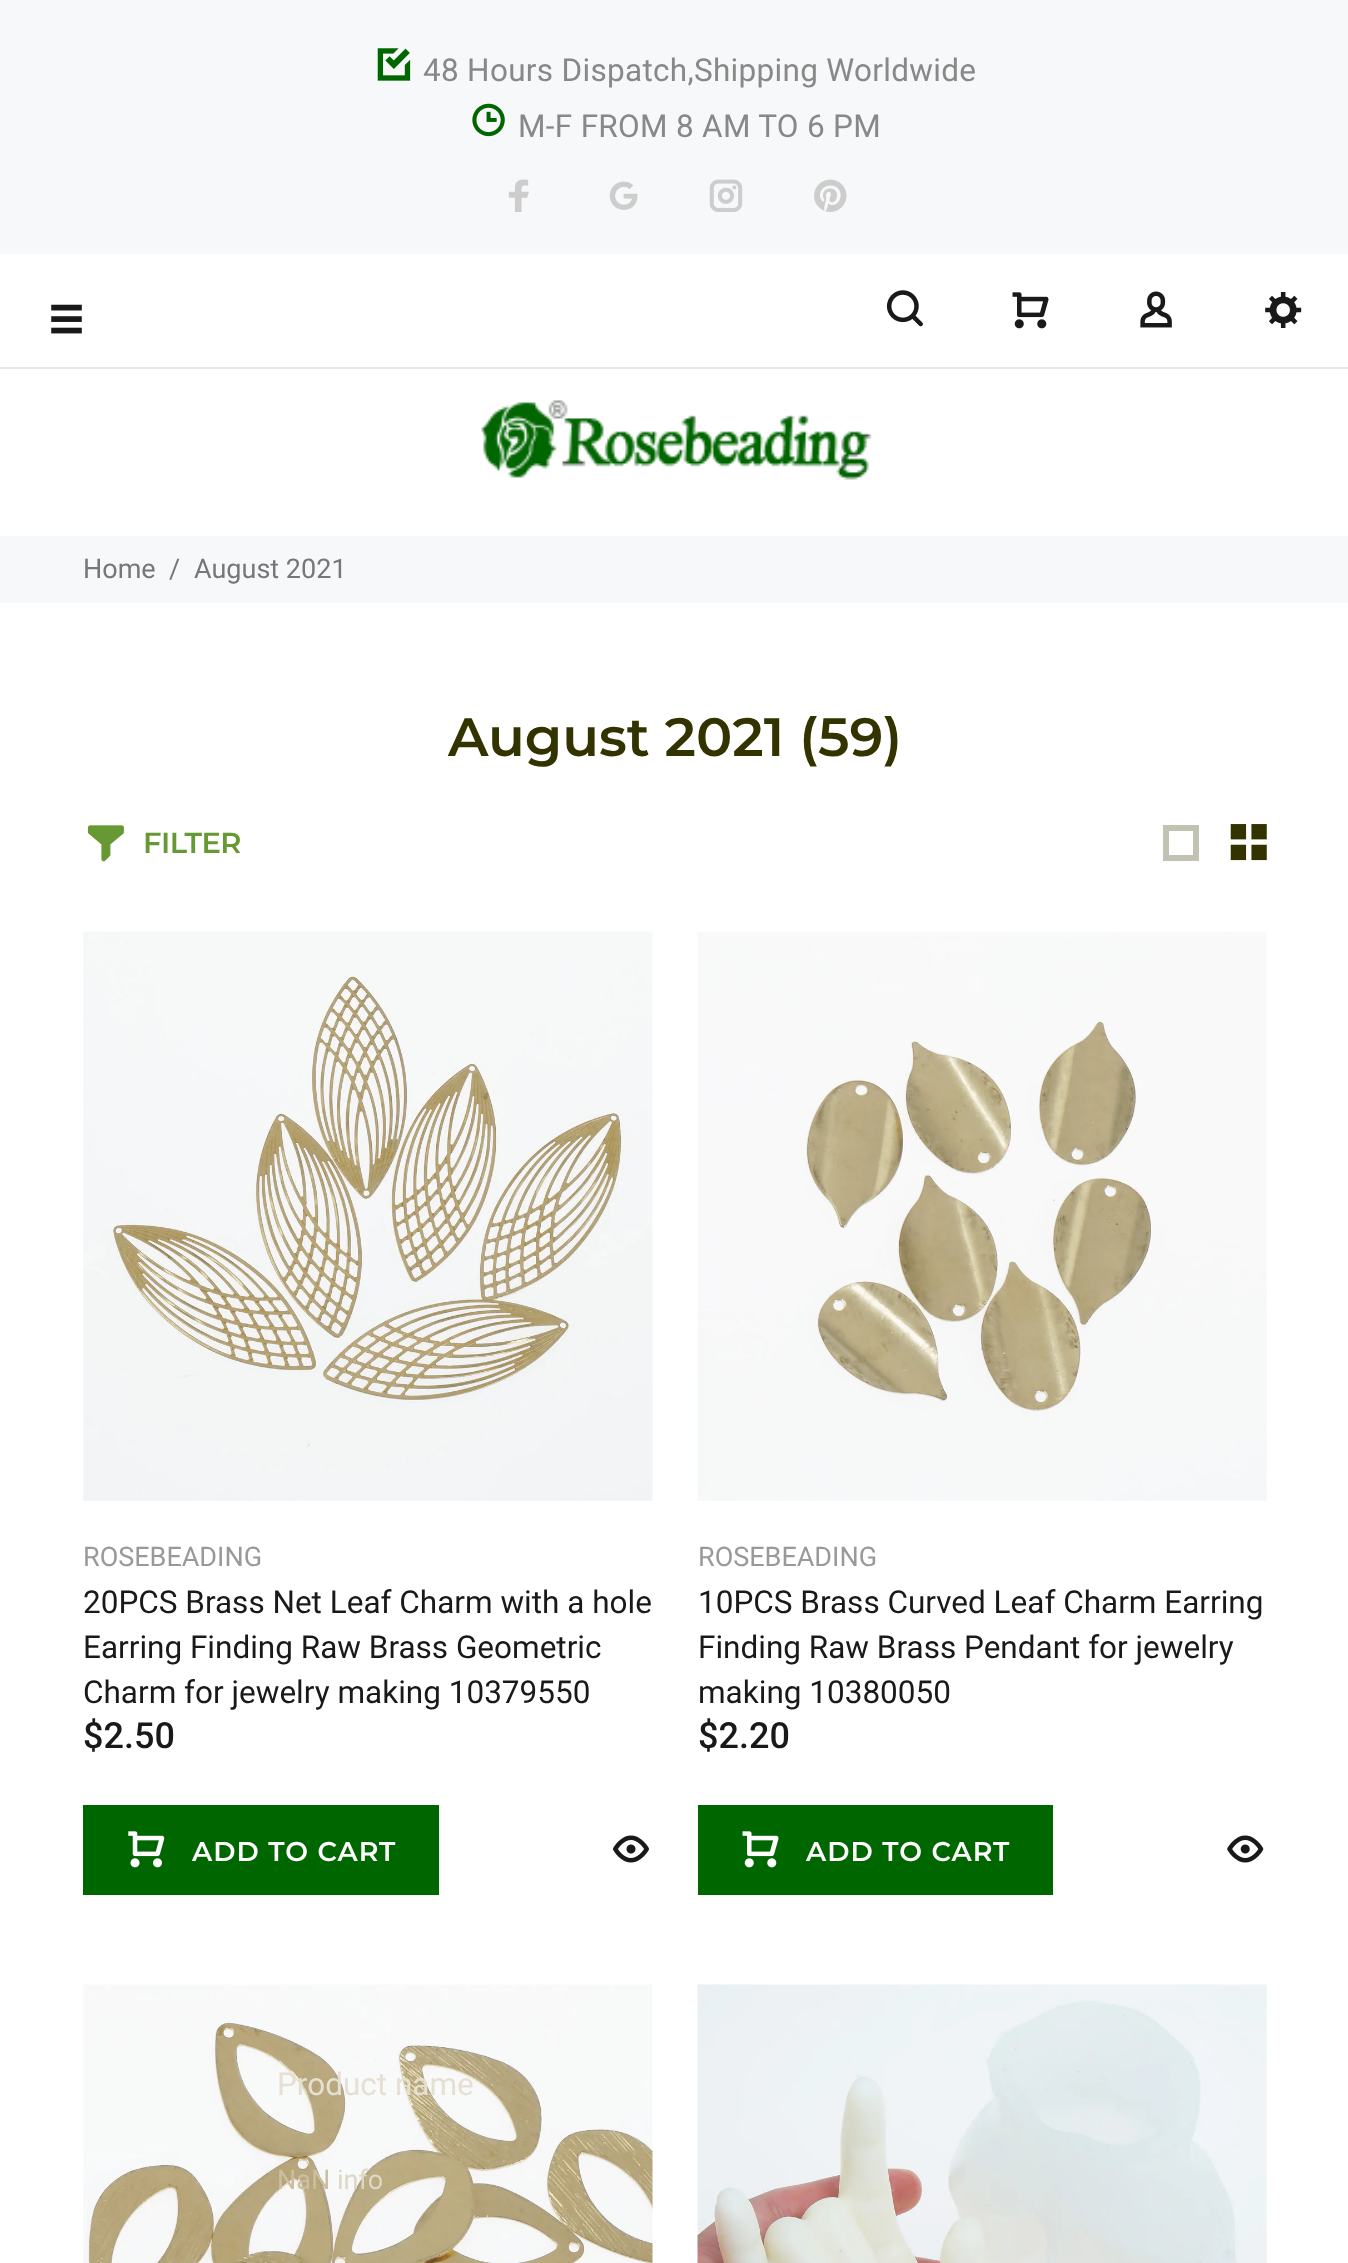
<?xml version="1.0" encoding="UTF-8"?>
<svg xmlns="http://www.w3.org/2000/svg" width="1348" height="2263">
    <rect width="100%" height="100%" fill="#FFFFFF"/>
    <rect x="0" y="0" width="1348" height="254" fill="#F7F8FA"/>
    <image x="377" y="48" width="34" height="33" href="img_01.png"/>
    <text x="423" y="81" font-family="Roboto" font-size="31.5" letter-spacing="0.3" fill="#888888">48 Hours Dispatch,Shipping Worldwide</text>
    <image x="472" y="103" width="33" height="34" href="img_02.png"/>
    <text x="518" y="137" font-family="Roboto" font-size="31.5" letter-spacing="0.3" fill="#888888">M-F FROM 8 AM TO 6 PM</text>
    <image x="508" y="179" width="21" height="33" href="img_03.png"/>
    <image x="609" y="181" width="29" height="29" href="img_04.png"/>
    <image x="709" y="179" width="34" height="33" href="img_05.png"/>
    <image x="814" y="179" width="33" height="33" href="img_06.png"/>
    <image x="51" y="304" width="31" height="30" href="img_07.png"/>
    <image x="886" y="290" width="37" height="37" href="img_08.png"/>
    <image x="1012" y="292" width="37" height="37" href="img_09.png"/>
    <image x="1140" y="291" width="32" height="37" href="img_10.png"/>
    <image x="1265" y="292" width="37" height="36" href="img_11.png"/>
    <rect x="0" y="367" width="1348" height="2" fill="#E9E7E7"/>
    <image x="481" y="400" width="391" height="80" href="img_12.png"/>
    <rect x="0" y="536" width="1348" height="67" fill="#F7F8FA"/>
    <text x="83" y="578" font-family="Roboto" font-size="27" fill="#777777">Home</text>
    <text x="169" y="578" font-family="Roboto" font-size="27" fill="#777777">/</text>
    <text x="194" y="578" font-family="Roboto" font-size="27" fill="#777777">August 2021</text>
    <text x="448" y="756" font-family="Montserrat" font-size="54" font-weight="600" fill="#333300">August 2021 (59)</text>
    <image x="87" y="825" width="37" height="37" href="img_13.png"/>
    <text x="143" y="853" font-family="Montserrat" font-size="29" font-weight="600" letter-spacing="-0.5" fill="#669933">FILTER</text>
    <path d="M 1163 861 V 825 H 1199 V 861 Z M 1169 855 H 1193 V 831 H 1169 Z" fill="#C2C2B3"/>
    <image x="1230" y="824" width="37" height="37" href="img_14.png"/>
    <image x="83" y="931" width="570" height="570" href="img_15.png"/>
    <text x="83" y="1566" font-family="Roboto" font-size="27" fill="#999999">ROSEBEADING</text>
    <text font-family="Roboto" font-size="31.5" fill="#191919">
        <tspan x="83" y="1613">20PCS Brass Net Leaf Charm with a hole</tspan>
        <tspan x="83" y="1658">Earring Finding Raw Brass Geometric</tspan>
        <tspan x="83" y="1703">Charm for jewelry making 10379550</tspan>
    </text>
    <text x="83" y="1748" font-family="Roboto" font-size="36" font-weight="500" fill="#191919">$2.50</text>
    <rect x="83" y="1805" width="356" height="90" fill="#006600"/>
    <image x="128" y="1831" width="37" height="37" href="img_16.png"/>
    <text x="192" y="1861" font-family="Montserrat" font-size="27" font-weight="600" letter-spacing="1" fill="#FFFFFF">ADD TO CART</text>
    <image x="613" y="1835" width="36" height="28" href="img_17.png"/>
    <image x="697" y="931" width="570" height="570" href="img_18.png"/>
    <text x="698" y="1566" font-family="Roboto" font-size="27" fill="#999999">ROSEBEADING</text>
    <text font-family="Roboto" font-size="31.5" fill="#191919">
        <tspan x="698" y="1613">10PCS Brass Curved Leaf Charm Earring</tspan>
        <tspan x="698" y="1658">Finding Raw Brass Pendant for jewelry</tspan>
        <tspan x="698" y="1703">making 10380050</tspan>
    </text>
    <text x="698" y="1748" font-family="Roboto" font-size="36" font-weight="500" fill="#191919">$2.20</text>
    <rect x="698" y="1805" width="355" height="90" fill="#006600"/>
    <image x="742" y="1831" width="37" height="37" href="img_19.png"/>
    <text x="806" y="1861" font-family="Montserrat" font-size="27" font-weight="600" letter-spacing="1" fill="#FFFFFF">ADD TO CART</text>
    <image x="1227" y="1835" width="37" height="28" href="img_20.png"/>
    <image x="83" y="1984" width="570" height="279" href="img_21.png"/>
    <image x="697" y="1984" width="570" height="279" href="img_22.png"/>
    <text x="277" y="2095" font-family="Roboto" font-size="31.5" fill="#E5E0D2">Product name</text>
    <text x="277" y="2189" font-family="Roboto" font-size="27" fill="#CBBFA1">NaN</text>
    <text x="337" y="2189" font-family="Roboto" font-size="27" fill="#DDD7C6">info</text>
</svg>
